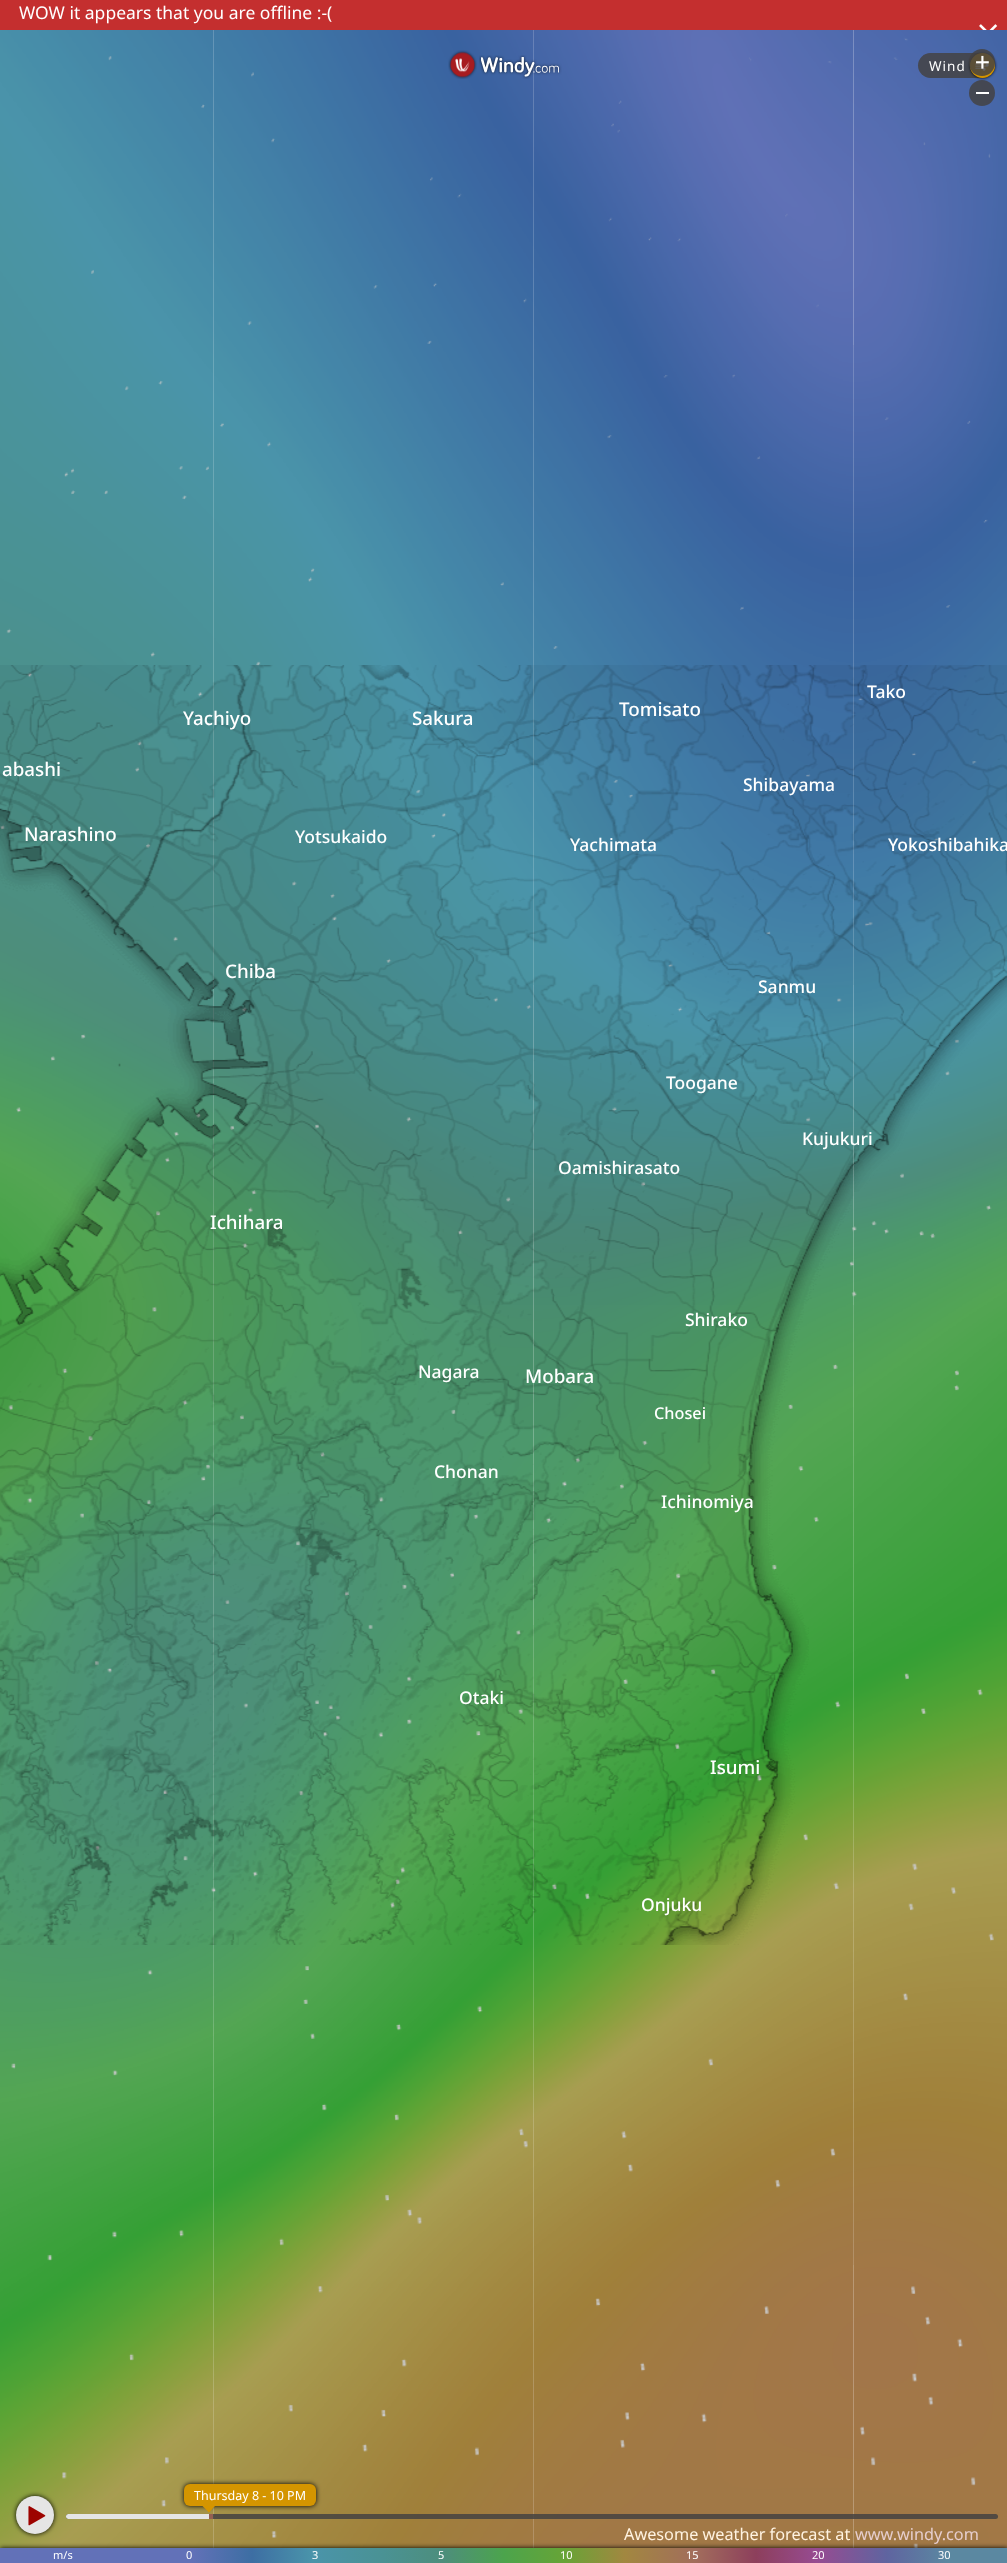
<?xml version="1.0" encoding="UTF-8"?>
<svg xmlns="http://www.w3.org/2000/svg" width="1007" height="2563">
    <defs>
        <filter id="blur1" x="-50%" y="-200%" width="200%" height="500%"><feGaussianBlur stdDeviation="1.5"/></filter>
        <filter id="blur2" x="-50%" y="-200%" width="200%" height="500%"><feGaussianBlur stdDeviation="2.5"/></filter>
        <linearGradient id="g1" gradientUnits="userSpaceOnUse" x1="0" y1="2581" x2="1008" y2="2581"><stop offset="0" stop-color="#6271B8"/><stop offset="0.19" stop-color="#6271B8"/><stop offset="0.25" stop-color="#3D6EA3"/><stop offset="0.31" stop-color="#4A94AA"/><stop offset="0.38" stop-color="#4A9294"/><stop offset="0.44" stop-color="#4D8E7C"/><stop offset="0.5" stop-color="#4CA44C"/><stop offset="0.56" stop-color="#67A436"/><stop offset="0.62" stop-color="#A28740"/><stop offset="0.69" stop-color="#A26D5C"/><stop offset="0.75" stop-color="#8D3F5C"/><stop offset="0.81" stop-color="#974B91"/><stop offset="0.88" stop-color="#5F64A0"/><stop offset="0.94" stop-color="#5B88A1"/><stop offset="1" stop-color="#5B88A1"/></linearGradient>
    </defs>
    <rect width="100%" height="100%" fill="#FFFFFF"/>
    <rect x="0" y="0" width="1007" height="30" fill="#C42F2F"/>
    <text x="19" y="19" font-family="Noto Sans" font-size="17.5" fill="#FFFFFF">WOW it appears that you are offline :-(</text>
    <image x="979" y="24" width="19" height="6" href="img_01.png"/>
    <image x="213" y="30" width="321" height="315" href="img_07.png"/>
    <image x="0" y="30" width="214" height="315" href="img_06.png"/>
    <image x="533" y="30" width="321" height="315" href="img_08.png"/>
    <image x="854" y="30" width="153" height="315" href="img_09.png"/>
    <image x="213" y="345" width="321" height="320" href="img_11.png"/>
    <image x="0" y="345" width="214" height="320" href="img_10.png"/>
    <image x="533" y="345" width="321" height="320" href="img_12.png"/>
    <image x="853" y="345" width="154" height="320" href="img_13.png"/>
    <image x="213" y="665" width="321" height="320" href="img_15.png"/>
    <image x="0" y="665" width="214" height="320" href="img_14.png"/>
    <image x="533" y="665" width="321" height="320" href="img_16.png"/>
    <image x="853" y="665" width="154" height="320" href="img_17.png"/>
    <image x="213" y="985" width="321" height="320" href="img_19.png"/>
    <image x="0" y="985" width="214" height="320" href="img_18.png"/>
    <image x="534" y="985" width="320" height="320" href="img_20.png"/>
    <image x="854" y="985" width="153" height="320" href="img_21.png"/>
    <image x="213" y="1305" width="321" height="320" href="img_23.png"/>
    <image x="0" y="1305" width="214" height="320" href="img_22.png"/>
    <image x="534" y="1305" width="320" height="320" href="img_24.png"/>
    <image x="853" y="1305" width="154" height="320" href="img_25.png"/>
    <image x="213" y="1625" width="321" height="320" href="img_27.png"/>
    <image x="0" y="1625" width="214" height="320" href="img_26.png"/>
    <image x="533" y="1625" width="321" height="320" href="img_28.png"/>
    <image x="853" y="1625" width="154" height="320" href="img_29.png"/>
    <image x="213" y="1945" width="321" height="320" href="img_31.png"/>
    <image x="0" y="1945" width="214" height="320" href="img_30.png"/>
    <image x="533" y="1945" width="321" height="320" href="img_32.png"/>
    <image x="853" y="1945" width="154" height="320" href="img_33.png"/>
    <image x="213" y="2265" width="321" height="283" href="img_35.png"/>
    <image x="0" y="2265" width="214" height="283" href="img_34.png"/>
    <image x="533" y="2265" width="321" height="283" href="img_36.png"/>
    <image x="854" y="2265" width="153" height="283" href="img_37.png"/>
    <image x="0" y="37" width="994" height="2511" href="img_38.png"/>
    <image x="448" y="50" width="29" height="29" href="img_02.png"/>
    <image x="479" y="55" width="83" height="24" href="img_03.png"/>
    <rect x="918" y="53" width="77" height="25" rx="12.5" fill="#444141" fill-opacity="0.84"/>
    <text x="929" y="71" font-family="Noto Sans" font-size="13.5" letter-spacing="1" fill="#FFFFFF">Wind</text>
    <rect x="970" y="53" width="25" height="25" rx="12.5" fill="#000000" filter="url(#blur1)"/>
    <circle cx="982.5" cy="65.5" r="12.5" fill="#D49500"/>
    <image x="975" y="61" width="14" height="10" href="img_04.png"/>
    <rect x="969" y="49" width="26" height="27" rx="13" fill="#444141" fill-opacity="0.84"/>
    <image x="976" y="55" width="13" height="14" href="img_05.png"/>
    <circle cx="982" cy="93" r="13" fill="#444141" fill-opacity="0.84"/>
    <rect x="976" y="92" width="13" height="2" fill="#FFFFFF"/>
    <image x="213" y="665" width="321" height="320" href="img_40.png"/>
    <image x="0" y="665" width="214" height="320" href="img_39.png"/>
    <image x="533" y="665" width="321" height="320" href="img_41.png"/>
    <image x="854" y="665" width="153" height="320" href="img_42.png"/>
    <image x="213" y="985" width="321" height="320" href="img_44.png"/>
    <image x="0" y="985" width="214" height="320" href="img_43.png"/>
    <image x="533" y="985" width="321" height="320" href="img_45.png"/>
    <image x="854" y="985" width="153" height="207" href="img_46.png"/>
    <image x="213" y="1305" width="321" height="320" href="img_48.png"/>
    <image x="0" y="1305" width="214" height="320" href="img_47.png"/>
    <image x="533" y="1305" width="271" height="320" href="img_49.png"/>
    <image x="213" y="1625" width="321" height="320" href="img_51.png"/>
    <image x="0" y="1625" width="214" height="320" href="img_50.png"/>
    <image x="533" y="1625" width="276" height="320" href="img_52.png"/>
    <text x="2" y="776" font-family="Noto Sans" font-size="18.75" font-weight="500" fill="#FFFFFF">abashi</text>
    <text x="24" y="841" font-family="Noto Sans" font-size="18.75" font-weight="500" fill="#FFFFFF">Narashino</text>
    <text x="183" y="725" font-family="Noto Sans" font-size="18.75" font-weight="500" fill="#FFFFFF">Yachiyo</text>
    <text x="412" y="725" font-family="Noto Sans" font-size="18.75" font-weight="500" fill="#FFFFFF">Sakura</text>
    <text x="295" y="843" font-family="Noto Sans" font-size="17.5" font-weight="500" fill="#FFFFFF">Yotsukaido</text>
    <text x="225" y="978" font-family="Noto Sans" font-size="18.75" font-weight="500" fill="#FFFFFF">Chiba</text>
    <text x="619" y="716" font-family="Noto Sans" font-size="18.75" font-weight="500" fill="#FFFFFF">Tomisato</text>
    <text x="743" y="791" font-family="Noto Sans" font-size="17.5" font-weight="500" fill="#FFFFFF">Shibayama</text>
    <text x="570" y="851" font-family="Noto Sans" font-size="17.5" font-weight="500" fill="#FFFFFF">Yachimata</text>
    <text x="867" y="698" font-family="Noto Sans" font-size="17.5" font-weight="500" fill="#FFFFFF">Tako</text>
    <text x="888" y="851" font-family="Noto Sans" font-size="17.5" font-weight="500" fill="#FFFFFF">Yokoshibahika</text>
    <text x="758" y="993" font-family="Noto Sans" font-size="17.5" font-weight="500" fill="#FFFFFF">Sanmu</text>
    <text x="666" y="1089" font-family="Noto Sans" font-size="17.5" font-weight="500" fill="#FFFFFF">Toogane</text>
    <text x="802" y="1145" font-family="Noto Sans" font-size="17.5" font-weight="500" fill="#FFFFFF">Kujukuri</text>
    <text x="558" y="1174" font-family="Noto Sans" font-size="17.5" font-weight="500" fill="#FFFFFF">Oamishirasato</text>
    <text x="210" y="1229" font-family="Noto Sans" font-size="18.75" font-weight="500" fill="#FFFFFF">Ichihara</text>
    <text x="418" y="1378" font-family="Noto Sans" font-size="17.5" font-weight="500" fill="#FFFFFF">Nagara</text>
    <text x="434" y="1478" font-family="Noto Sans" font-size="17.5" font-weight="500" fill="#FFFFFF">Chonan</text>
    <text x="685" y="1326" font-family="Noto Sans" font-size="17.5" font-weight="500" fill="#FFFFFF">Shirako</text>
    <text x="525" y="1383" font-family="Noto Sans" font-size="18.75" font-weight="500" fill="#FFFFFF">Mobara</text>
    <text x="654" y="1419" font-family="Noto Sans" font-size="16.25" font-weight="500" fill="#FFFFFF">Chosei</text>
    <text x="661" y="1508" font-family="Noto Sans" font-size="17.5" font-weight="500" fill="#FFFFFF">Ichinomiya</text>
    <text x="459" y="1704" font-family="Noto Sans" font-size="17.5" font-weight="500" fill="#FFFFFF">Otaki</text>
    <text x="710" y="1774" font-family="Noto Sans" font-size="18.75" font-weight="500" fill="#FFFFFF">Isumi</text>
    <text x="641" y="1911" font-family="Noto Sans" font-size="17.5" font-weight="500" fill="#FFFFFF">Onjuku</text>
    <rect x="16" y="2496" width="38" height="38" rx="19" fill="#000000" filter="url(#blur2)"/>
    <circle cx="35" cy="2515" r="19" fill="#E5E5E5"/>
    <image x="28" y="2506" width="18" height="20" href="img_53.png"/>
    <rect x="184" y="2484" width="132" height="22" rx="6" fill="#000000" filter="url(#blur2)"/>
    <rect x="184" y="2484" width="132" height="22" rx="6" fill="#D49500"/>
    <text x="194" y="2500" font-family="Noto Sans" font-size="12.5" fill="#FFFFFF">Thursday 8 - 10 PM</text>
    <path d="M 202.5 2506 H 215 L 209 2512.5 Z" fill="#D49500"/>
    <rect x="66" y="2514" width="932" height="5" rx="2.5" fill="#444141" fill-opacity="0.84"/>
    <path d="M 68.5 2514 H 209 V 2519 H 68.5 C 67 2519 66 2518 66 2516.5 C 66 2515 67 2514 68.5 2514 Z" fill="#E5E5E5"/>
    <rect x="209" y="2514" width="4" height="5" fill="#946051"/>
    <rect x="0" y="2548" width="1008" height="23" fill="#000000" filter="url(#blur2)"/>
    <text x="624" y="2540" font-family="Noto Sans" font-size="16.25" fill="#FFF3E1">Awesome weather forecast at</text>
    <text x="855" y="2540" font-family="Noto Sans" font-size="16.25" fill="#E6CECE">www.windy.com</text>
    <rect x="0" y="2548" width="1007" height="15" fill="url(#g1)"/>
    <text x="53" y="2559" font-family="Noto Sans" font-size="11" fill="#FFFFFF">m/s</text>
    <text x="186" y="2559" font-family="Noto Sans" font-size="11" fill="#FFFFFF">0</text>
    <text x="312" y="2559" font-family="Noto Sans" font-size="11" fill="#FFFFFF">3</text>
    <text x="438" y="2559" font-family="Noto Sans" font-size="11" fill="#FFFFFF">5</text>
    <text x="560" y="2559" font-family="Noto Sans" font-size="11" fill="#FFFFFF">10</text>
    <text x="686" y="2559" font-family="Noto Sans" font-size="11" fill="#FFFFFF">15</text>
    <text x="812" y="2559" font-family="Noto Sans" font-size="11" fill="#FFFFFF">20</text>
    <text x="938" y="2559" font-family="Noto Sans" font-size="11" fill="#FFFFFF">30</text>
</svg>
